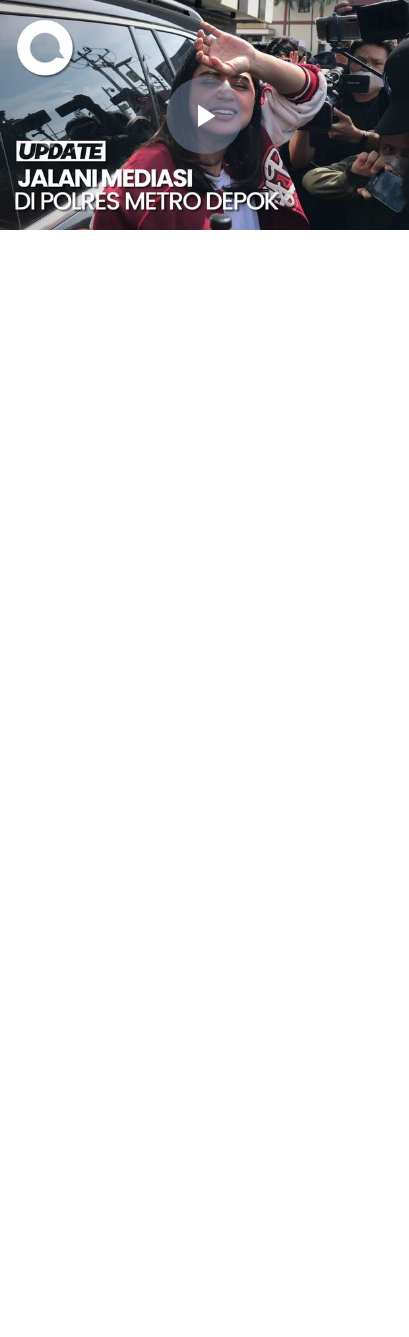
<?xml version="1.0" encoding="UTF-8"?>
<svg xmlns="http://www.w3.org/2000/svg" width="409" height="1337">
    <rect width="100%" height="100%" fill="#FFFFFF"/>
    <image x="0" y="0" width="409" height="230" href="img_01.png"/>
    <circle cx="204.5" cy="115.5" r="38.5" fill="#73859F" fill-opacity="0.5"/>
    <path d="M 198 104.5 V 127 L 215.5 116 Z" fill="#FFFFFF"/>
</svg>
